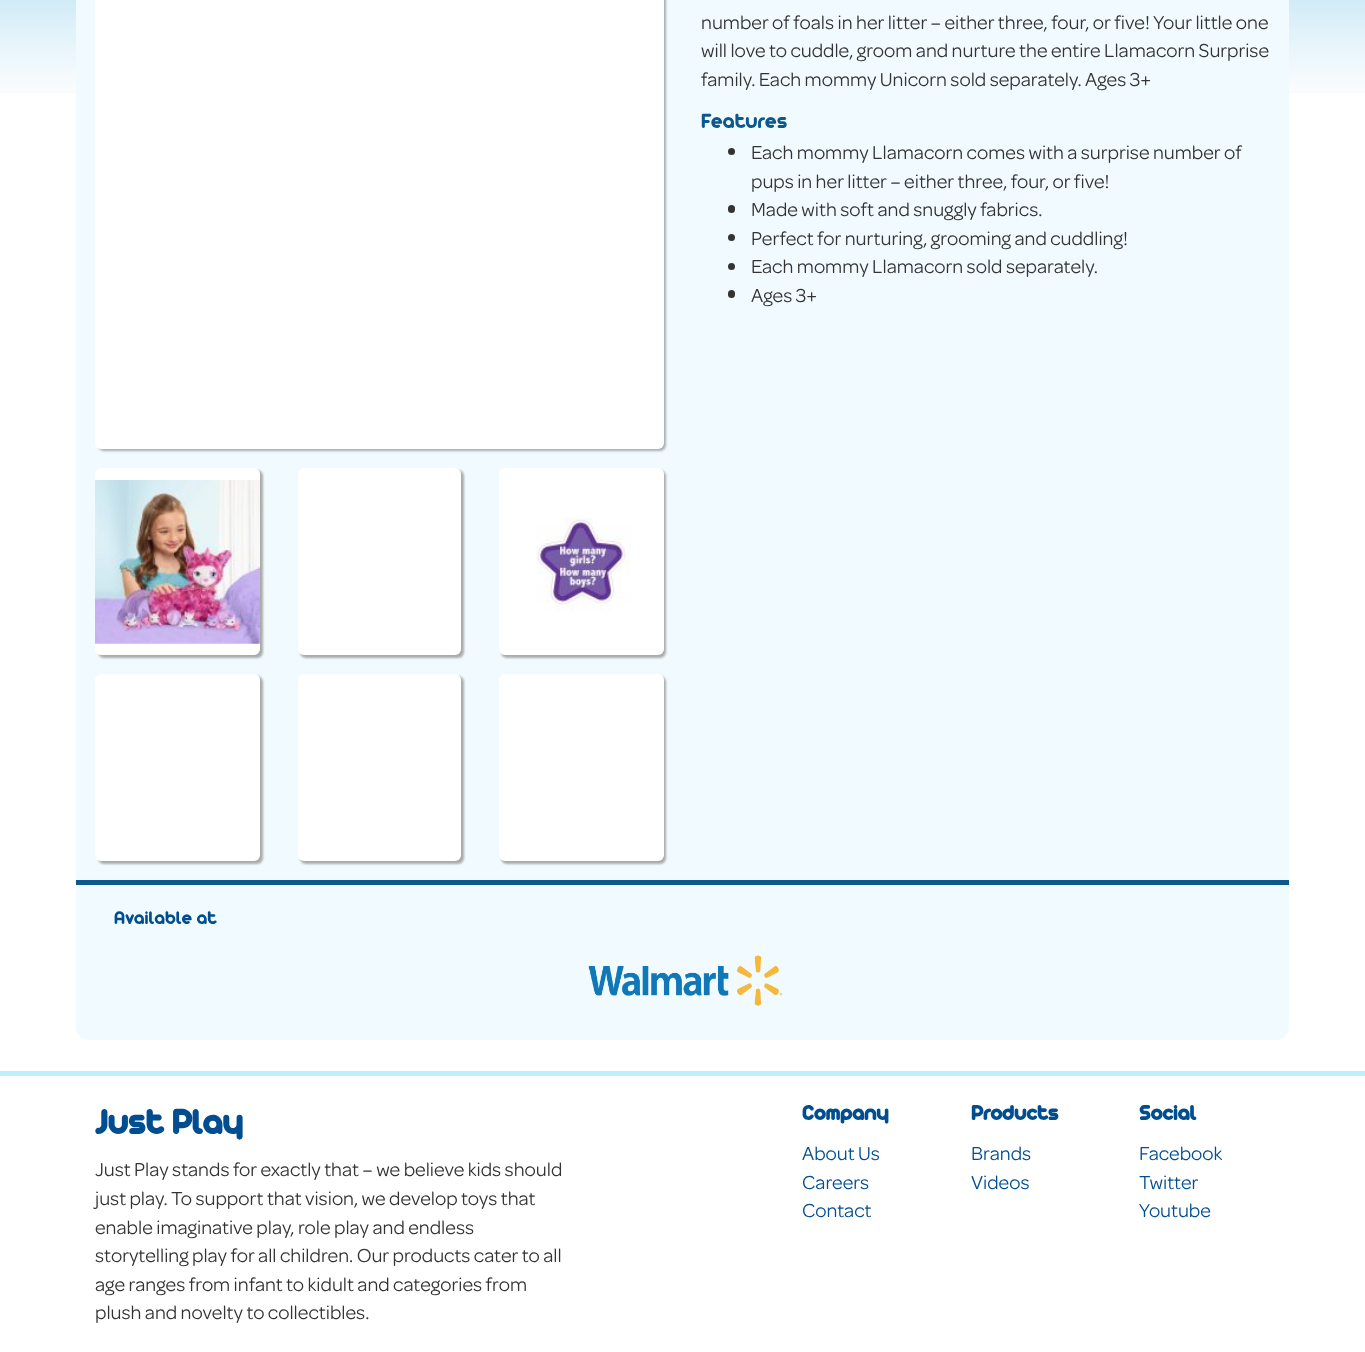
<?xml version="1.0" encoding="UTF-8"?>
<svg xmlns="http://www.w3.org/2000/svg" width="1365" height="1352">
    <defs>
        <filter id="blur1" x="-50%" y="-200%" width="200%" height="500%"><feGaussianBlur stdDeviation="1"/></filter>
    </defs>
    <rect width="100%" height="100%" fill="#FFFFFF"/>
    <image x="0" y="0" width="1365" height="93" href="img_01.png"/>
    <rect x="76" y="-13" width="1213" height="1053" rx="13" fill="#F1FBFF"/>
    <rect x="98" y="-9" width="568" height="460" rx="6" fill="#000000" fill-opacity="0.3" filter="url(#blur1)"/>
    <rect x="95" y="-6" width="569" height="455" rx="6" fill="#FFFFFF"/>
    <rect x="98" y="470" width="165" height="188" rx="6" fill="#AAAAAA" filter="url(#blur1)"/>
    <rect x="95" y="468" width="165" height="187" rx="6" fill="#FFFFFF"/>
    <image x="95" y="480" width="165" height="164" href="img_02.png"/>
    <rect x="300" y="470" width="164" height="188" rx="6" fill="#AAAAAA" filter="url(#blur1)"/>
    <rect x="298" y="468" width="163" height="187" rx="6" fill="#FFFFFF"/>
    <rect x="501" y="470" width="165" height="188" rx="6" fill="#AAAAAA" filter="url(#blur1)"/>
    <rect x="499" y="468" width="165" height="187" rx="6" fill="#FFFFFF"/>
    <image x="536" y="517" width="95" height="95" href="img_03.png"/>
    <rect x="98" y="676" width="165" height="188" rx="6" fill="#AAAAAA" filter="url(#blur1)"/>
    <rect x="95" y="674" width="165" height="187" rx="6" fill="#FFFFFF"/>
    <rect x="300" y="676" width="164" height="188" rx="6" fill="#AAAAAA" filter="url(#blur1)"/>
    <rect x="298" y="674" width="163" height="187" rx="6" fill="#FFFFFF"/>
    <rect x="501" y="676" width="165" height="188" rx="6" fill="#AAAAAA" filter="url(#blur1)"/>
    <rect x="499" y="674" width="165" height="187" rx="6" fill="#FFFFFF"/>
    <text font-family="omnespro" font-size="20" fill="#333333">
        <tspan x="701" y="29">number of foals in her litter – either three, four, or five! Your little one</tspan>
        <tspan x="701" y="57">will love to cuddle, groom and nurture the entire Llamacorn Surprise</tspan>
        <tspan x="701" y="86">family. Each mommy Unicorn sold separately. Ages 3+</tspan>
    </text>
    <text x="701" y="128" font-family="'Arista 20'" font-size="22.5" fill="#0D588E">Features</text>
    <circle cx="731.5" cy="151.5" r="3.5" fill="#333333"/>
    <text font-family="omnespro" font-size="20" fill="#333333">
        <tspan x="751" y="159">Each mommy Llamacorn comes with a surprise number of</tspan>
        <tspan x="751" y="188">pups in her litter – either three, four, or five!</tspan>
    </text>
    <rect x="728" y="205" width="7" height="8" rx="3.5" fill="#333333"/>
    <text x="751" y="216" font-family="omnespro" font-size="20" fill="#333333">Made with soft and snuggly fabrics.</text>
    <circle cx="731.5" cy="237.5" r="3.5" fill="#333333"/>
    <text x="751" y="245" font-family="omnespro" font-size="20" fill="#333333">Perfect for nurturing, grooming and cuddling!</text>
    <circle cx="731.5" cy="266.5" r="3.5" fill="#333333"/>
    <text x="751" y="273" font-family="omnespro" font-size="20" fill="#333333">Each mommy Llamacorn sold separately.</text>
    <rect x="728" y="290" width="7" height="8" rx="3.5" fill="#333333"/>
    <text x="751" y="302" font-family="omnespro" font-size="20" fill="#333333">Ages 3+</text>
    <rect x="76" y="880" width="1213" height="5" fill="#0D588E"/>
    <text x="114" y="924" font-family="'Arista 20'" font-size="20" fill="#004D90">Available at</text>
    <image x="588" y="955" width="195" height="51" href="img_04.png"/>
    <rect x="0" y="1071" width="1365" height="5" fill="#BEEFFF"/>
    <text x="95" y="1134" font-family="'Arista 20'" font-size="37.5" font-weight="700" fill="#004D90">Just Play</text>
    <text font-family="omnespro" font-size="20" fill="#333333">
        <tspan x="95" y="1176">Just Play stands for exactly that – we believe kids should</tspan>
        <tspan x="95" y="1205">just play. To support that vision, we develop toys that</tspan>
        <tspan x="95" y="1234">enable imaginative play, role play and endless</tspan>
        <tspan x="95" y="1262">storytelling play for all children. Our products cater to all</tspan>
        <tspan x="95" y="1291">age ranges from infant to kidult and categories from</tspan>
        <tspan x="95" y="1319">plush and novelty to collectibles.</tspan>
    </text>
    <text x="802" y="1120" font-family="'Arista 20'" font-size="22.5" font-weight="700" fill="#004D90">Company</text>
    <text font-family="omnespro" font-size="20" fill="#004D90">
        <tspan x="802" y="1160">About Us</tspan>
        <tspan x="802" y="1189">Careers</tspan>
        <tspan x="802" y="1217">Contact</tspan>
    </text>
    <text x="971" y="1120" font-family="'Arista 20'" font-size="22.5" font-weight="700" fill="#004D90">Products</text>
    <text font-family="omnespro" font-size="20" fill="#004D90">
        <tspan x="971" y="1160">Brands</tspan>
        <tspan x="971" y="1189">Videos</tspan>
    </text>
    <text x="1139" y="1120" font-family="'Arista 20'" font-size="22.5" font-weight="700" fill="#004D90">Social</text>
    <text font-family="omnespro" font-size="20" fill="#004D90">
        <tspan x="1139" y="1160">Facebook</tspan>
        <tspan x="1139" y="1189">Twitter</tspan>
        <tspan x="1139" y="1217">Youtube</tspan>
    </text>
</svg>
